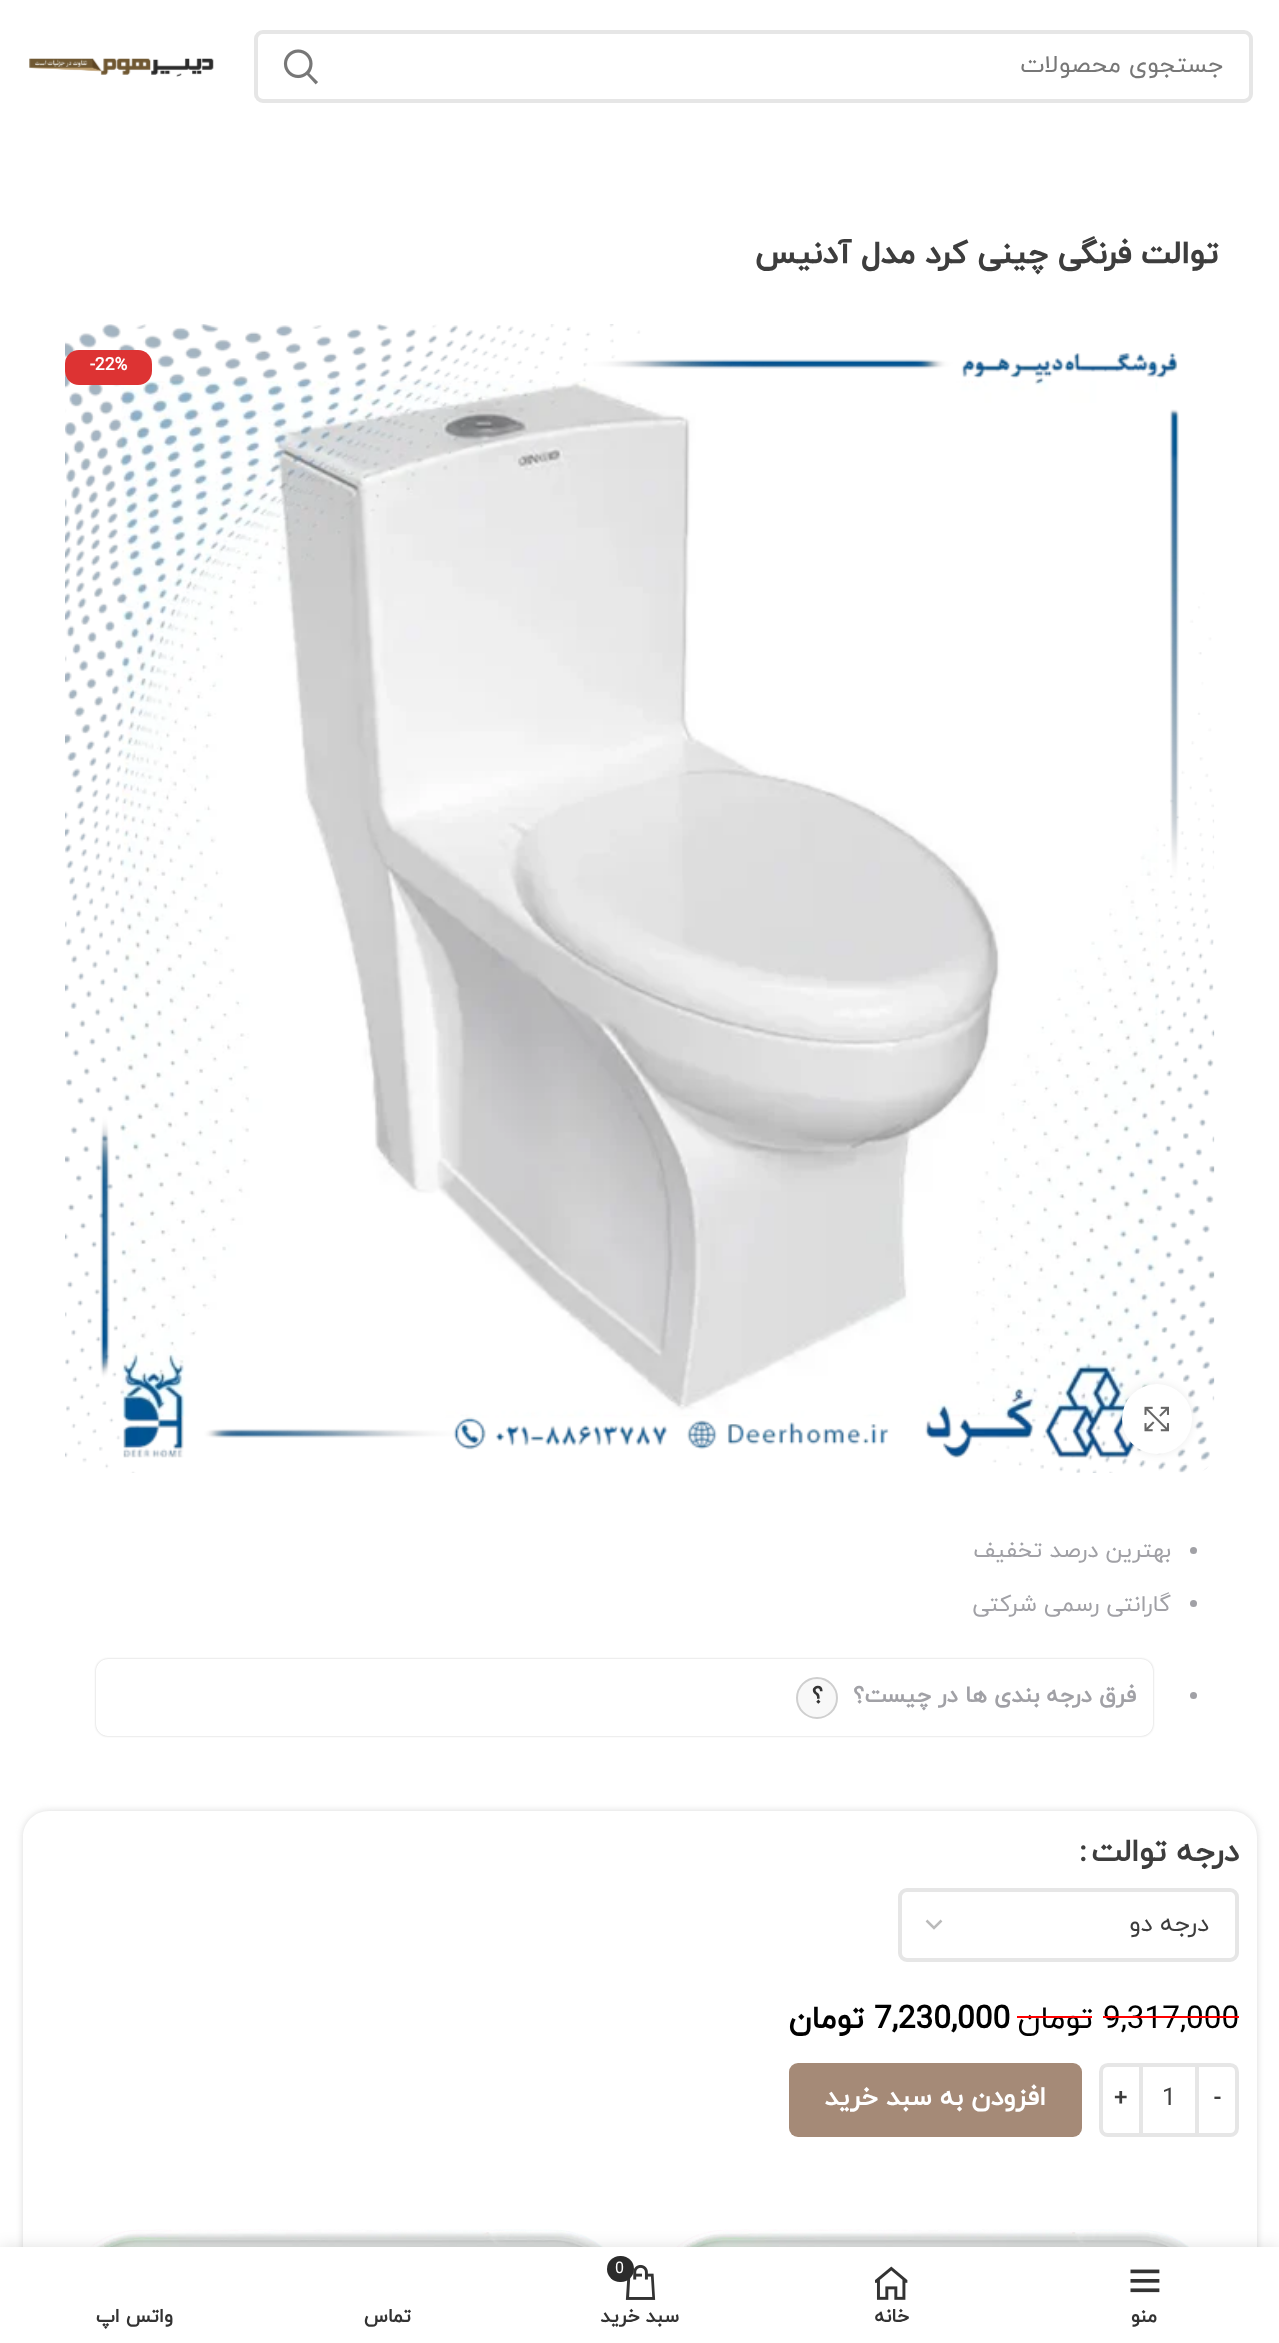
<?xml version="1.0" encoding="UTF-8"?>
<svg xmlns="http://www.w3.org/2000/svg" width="1279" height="2343">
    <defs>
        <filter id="blur1" x="-50%" y="-200%" width="200%" height="500%"><feGaussianBlur stdDeviation="4.5"/></filter>
        <clipPath id="clip1"><path d="M 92 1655 H 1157 V 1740 H 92 Z M 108 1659 H 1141 C 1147.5 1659 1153 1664.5 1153 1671 V 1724 C 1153 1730.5 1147.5 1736 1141 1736 H 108 C 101.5 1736 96 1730.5 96 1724 V 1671 C 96 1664.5 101.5 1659 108 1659 Z" clip-rule="evenodd"/></clipPath>
        <filter id="blur2" x="-50%" y="-200%" width="200%" height="500%"><feGaussianBlur stdDeviation="1"/></filter>
        <clipPath id="clip2"><path d="M 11 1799 H 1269 V 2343 H 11 Z M 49 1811 H 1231 C 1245.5 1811 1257 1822.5 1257 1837 V 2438 C 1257 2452.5 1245.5 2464 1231 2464 H 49 C 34.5 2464 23 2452.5 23 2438 V 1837 C 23 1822.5 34.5 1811 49 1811 Z" clip-rule="evenodd"/></clipPath>
        <filter id="blur3" x="-50%" y="-200%" width="200%" height="500%"><feGaussianBlur stdDeviation="3.5"/></filter>
        <filter id="blur4" x="-50%" y="-200%" width="200%" height="500%"><feGaussianBlur stdDeviation="8"/></filter>
    </defs>
    <rect width="100%" height="100%" fill="#FFFFFF"/>
    <rect x="256" y="32" width="995" height="69" rx="7" fill="none" stroke="#E6E6E6" stroke-width="4"/>
    <text x="1223" y="72" font-family="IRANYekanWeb" font-size="24.5" direction="rtl" fill="#777777">جستجوی محصولات</text>
    <image x="283" y="49" width="35" height="36" href="img_01.png"/>
    <image x="29" y="58" width="185" height="19" href="img_02.png"/>
    <text x="1218" y="263" font-family="IRANYekanWeb" font-size="31.5" font-weight="700" direction="rtl" fill="#3D3D3D">توالت فرنگی چینی کرد مدل آدنیس</text>
    <image x="65" y="324" width="1150" height="1149" href="img_03.png"/>
    <rect x="65" y="350" width="87" height="35" rx="14" fill="#DD3333"/>
    <text x="90" y="370" font-family="'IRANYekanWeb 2'" font-size="17.5" font-weight="700" fill="#FFFFFF">-22%</text>
    <rect x="1122" y="1384" width="70" height="70" rx="35" fill="#000000" fill-opacity="0.08" filter="url(#blur1)"/>
    <circle cx="1157" cy="1419" r="35" fill="#FFFFFF"/>
    <image x="1144" y="1406" width="25" height="26" href="img_04.png"/>
    <circle cx="1193.5" cy="1550.5" r="3.5" fill="#A1A1A6"/>
    <text x="1171" y="1557" font-family="IRANYekanWeb" font-size="22.75" direction="rtl" fill="#A1A1A6">بهترین درصد تخفیف</text>
    <circle cx="1193.5" cy="1603.5" r="3.5" fill="#A1A1A6"/>
    <text x="1171" y="1611" font-family="IRANYekanWeb" font-size="22.75" direction="rtl" fill="#A1A1A6">گارانتی رسمی شرکتی</text>
    <circle cx="1193.5" cy="1695.5" r="3.5" fill="#A1A1A6"/>
    <g clip-path="url(#clip1)">
        <rect x="96" y="1659" width="1057" height="77" rx="12" fill="#000000" fill-opacity="0.2" filter="url(#blur2)"/>
    </g>
    <text x="1136" y="1702" font-family="'IRANYekanWeb 2'" font-size="22.75" font-weight="700" direction="rtl" fill="#A1A1A6">فرق درجه بندی ها در چیست؟</text>
    <circle cx="817" cy="1698" r="20" fill="#F8F8F8" stroke="#CFCFCF" stroke-width="2"/>
    <text x="823" y="1702" font-family="'IRANYekanWeb 2'" font-size="22.75" font-weight="700" direction="rtl" fill="#333333">؟</text>
    <g clip-path="url(#clip2)">
        <rect x="23" y="1811" width="1234" height="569" rx="26" fill="#B4B4B4" fill-opacity="0.5" filter="url(#blur3)"/>
    </g>
    <text x="1239" y="1861" font-family="'IRANYekanWeb 2'" font-size="31.5" font-weight="700" direction="rtl" fill="#3D3D3D">درجه توالت</text>
    <text x="1079" y="1861" font-family="'IRANYekanWeb 2'" font-size="31.5" font-weight="700" fill="#3D3D3D">:</text>
    <path d="M 926.5 1920.5 L 934 1928 L 941.5 1920.5" fill="none" stroke="#BBBBBB" stroke-width="2.5"/>
    <rect x="900" y="1890" width="337" height="70" rx="7" fill="none" stroke="#E6E6E6" stroke-width="4"/>
    <text x="1209" y="1931" font-family="IRANYekanWeb" font-size="24.5" direction="rtl" fill="#3D3D3D">درجه دو</text>
    <text x="1103" y="2028" font-family="IRANYekanWeb" font-size="31.5" fill="#000000">9,317,000</text>
    <rect x="1103" y="2016" width="136" height="2" fill="#FF0000"/>
    <text x="1093" y="2028" font-family="IRANYekanWeb" font-size="31.5" direction="rtl" fill="#000000">تومان</text>
    <rect x="1017" y="2016" width="75" height="2" fill="#FF0000"/>
    <text x="874" y="2028" font-family="'IRANYekanWeb 2'" font-size="31.5" font-weight="700" fill="#000000">7,230,000</text>
    <text x="864" y="2028" font-family="'IRANYekanWeb 2'" font-size="31.5" font-weight="700" direction="rtl" fill="#000000">تومان</text>
    <path d="M 1197 2065 H 1230 C 1234 2065 1237 2068 1237 2072 V 2128 C 1237 2132 1234 2135 1230 2135 H 1197 Z" fill="none" stroke="#E6E6E6" stroke-width="4"/>
    <text x="1214" y="2105" font-family="'IRANYekanWeb 2'" font-size="22.75" font-weight="700" fill="#3D3D3D">-</text>
    <rect x="1143" y="2063" width="52" height="4" fill="#E6E6E6"/>
    <rect x="1143" y="2133" width="52" height="4" fill="#E6E6E6"/>
    <text x="1162" y="2105" font-family="IRANYekanWeb" font-size="24.5" fill="#3D3D3D">1</text>
    <path d="M 1108 2065 H 1141 V 2135 H 1108 C 1104 2135 1101 2132 1101 2128 V 2072 C 1101 2068 1104 2065 1108 2065 Z" fill="none" stroke="#E6E6E6" stroke-width="4"/>
    <text x="1114" y="2105" font-family="'IRANYekanWeb 2'" font-size="22.75" font-weight="700" fill="#3D3D3D">+</text>
    <rect x="789" y="2063" width="293" height="74" rx="9" fill="#A58A77"/>
    <text x="1046" y="2105" font-family="'IRANYekanWeb 2'" font-size="26.25" font-weight="700" direction="rtl" fill="#FFFFFF">افزودن به سبد خرید</text>
    <image x="676" y="2229" width="513" height="18" href="img_05.png"/>
    <image x="90" y="2229" width="513" height="18" href="img_06.png"/>
    <rect x="0" y="2247" width="1279" height="96" fill="#000000" fill-opacity="0.12" filter="url(#blur4)"/>
    <rect x="0" y="2247" width="1279" height="96" fill="#FFFFFF"/>
    <image x="1130" y="2269" width="30" height="24" href="img_07.png"/>
    <text x="1157" y="2322" font-family="'IRANYekanWeb 2'" font-size="19.25" font-weight="700" direction="rtl" fill="#333333">منو</text>
    <image x="875" y="2266" width="33" height="34" href="img_08.png"/>
    <text x="909" y="2322" font-family="'IRANYekanWeb 2'" font-size="19.25" font-weight="700" direction="rtl" fill="#333333">خانه</text>
    <image x="625" y="2264" width="31" height="36" href="img_09.png"/>
    <rect x="607" y="2256" width="27" height="26" rx="13" fill="#2B2B2B"/>
    <text x="615" y="2273" font-family="IRANYekanWeb" font-size="16" fill="#FFFFFF">0</text>
    <text x="679" y="2322" font-family="'IRANYekanWeb 2'" font-size="19.25" font-weight="700" direction="rtl" fill="#333333">سبد خرید</text>
    <text x="411" y="2322" font-family="'IRANYekanWeb 2'" font-size="19.25" font-weight="700" direction="rtl" fill="#333333">تماس</text>
    <text x="173" y="2322" font-family="'IRANYekanWeb 2'" font-size="19.25" font-weight="700" direction="rtl" fill="#333333">واتس اپ</text>
</svg>
